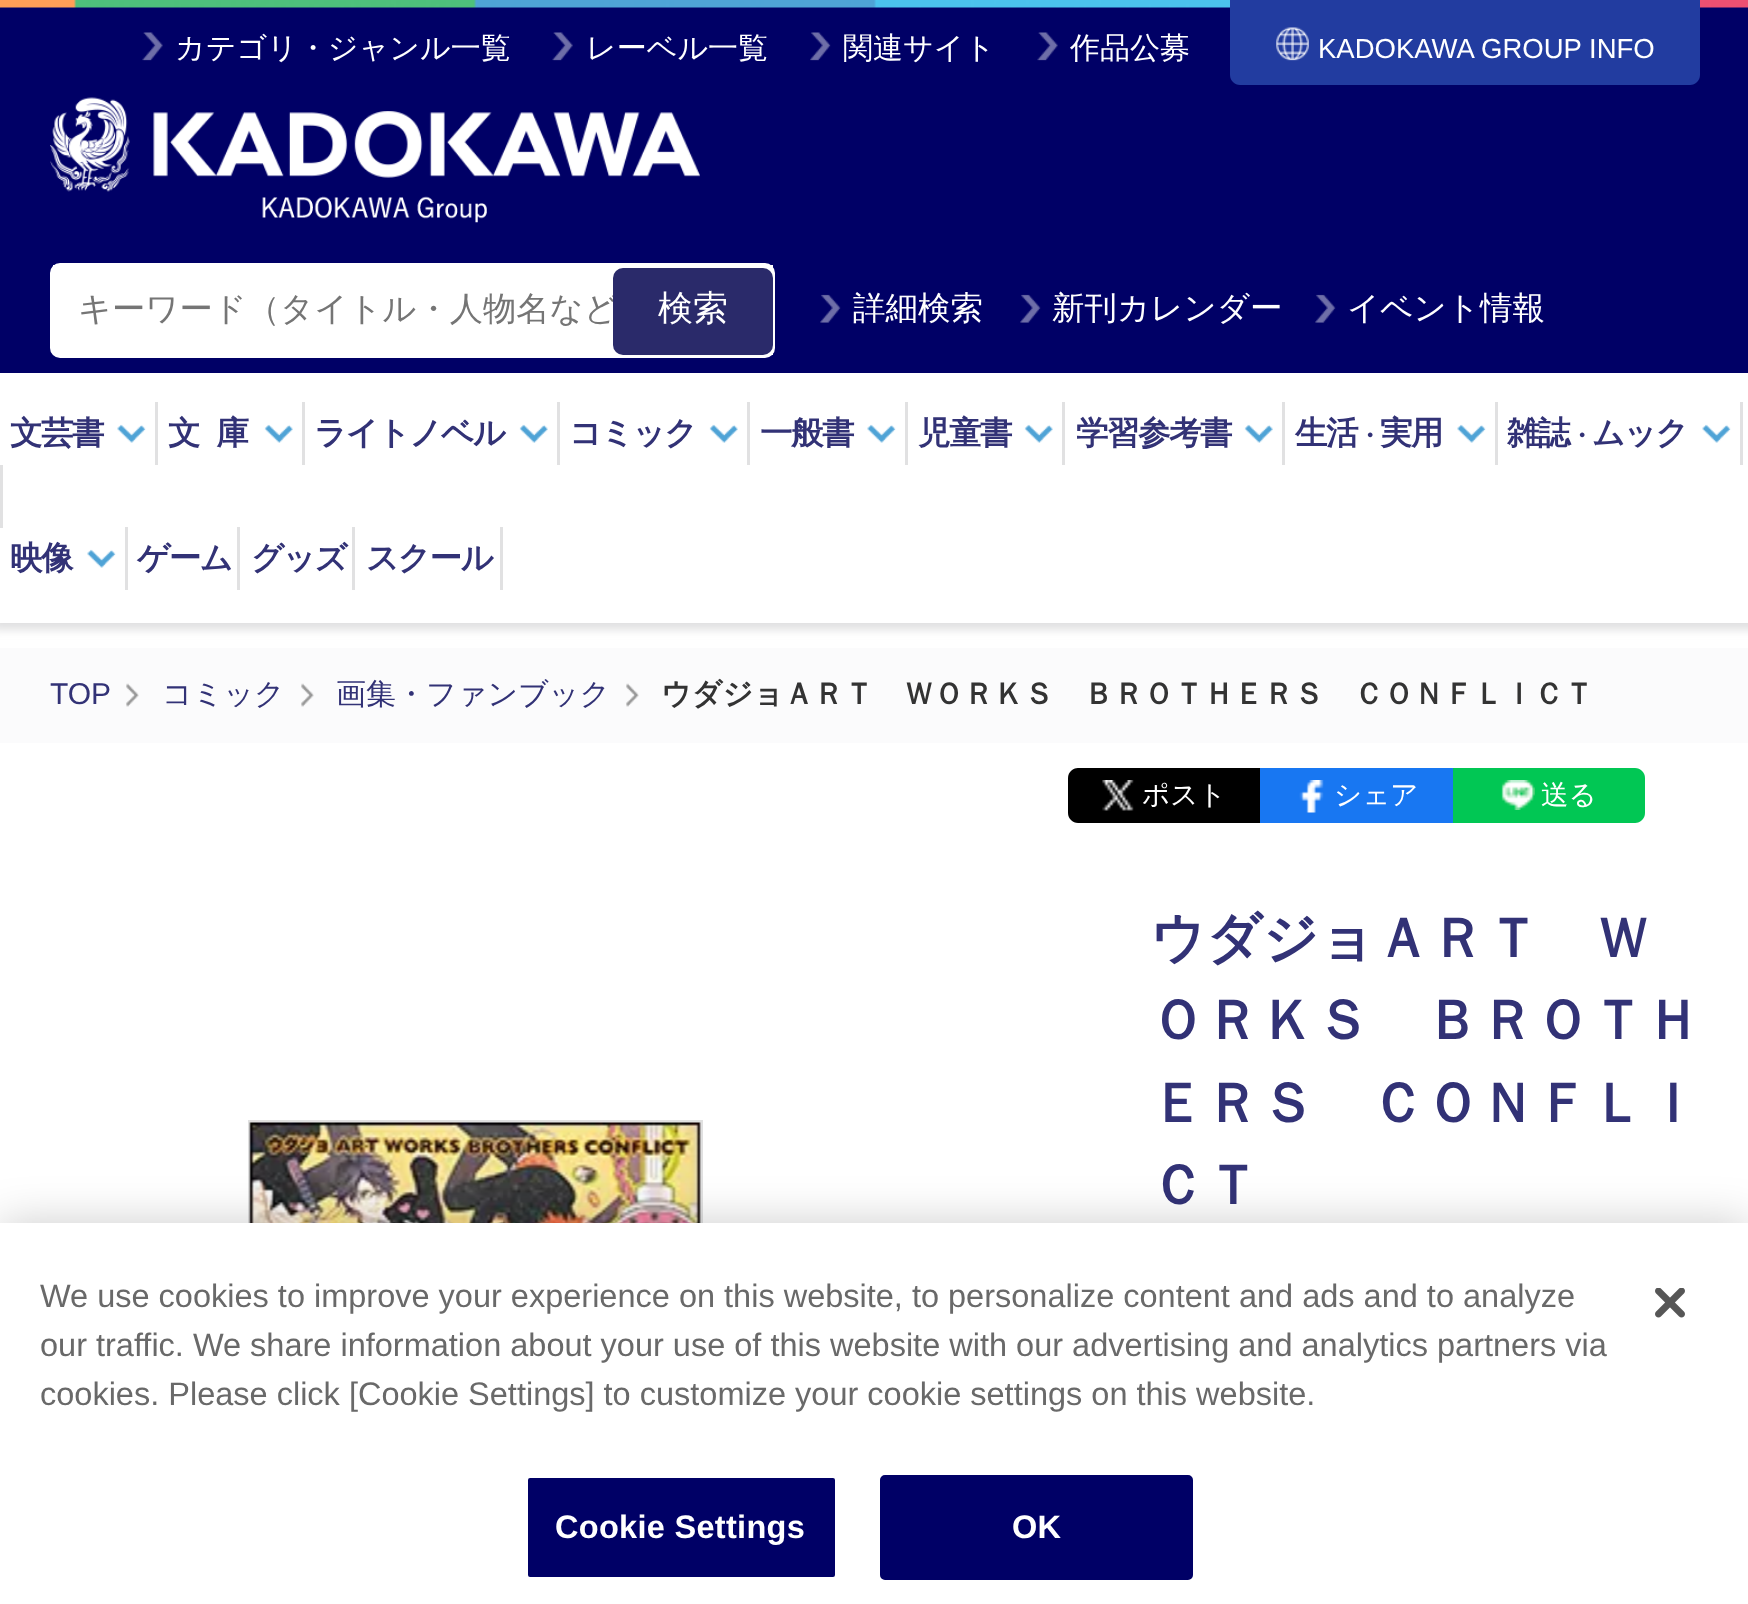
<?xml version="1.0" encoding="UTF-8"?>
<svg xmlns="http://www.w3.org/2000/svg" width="1748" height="1604">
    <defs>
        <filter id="blur1" x="-50%" y="-200%" width="200%" height="500%"><feGaussianBlur stdDeviation="4"/></filter>
        <filter id="blur2" x="-50%" y="-200%" width="200%" height="500%"><feGaussianBlur stdDeviation="22.5"/></filter>
    </defs>
    <rect width="100%" height="100%" fill="#FFFFFF"/>
    <rect x="-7" y="-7" width="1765" height="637" fill="#E1E1E2" filter="url(#blur1)"/>
    <rect x="0" y="7" width="1748" height="366" fill="#000066"/>
    <image x="0" y="0" width="1748" height="8" href="img_01.png"/>
    <image x="142" y="32" width="21" height="29" href="img_02.png"/>
    <text x="175" y="58" font-family="WenQuanYi Zen Hei" font-size="30" font-weight="500" fill="#FFFFFF">カテゴリ・ジャンル一覧</text>
    <image x="552" y="32" width="21" height="29" href="img_03.png"/>
    <text x="586" y="58" font-family="WenQuanYi Zen Hei" font-size="30" font-weight="500" fill="#FFFFFF">レーベル一覧</text>
    <image x="810" y="32" width="21" height="29" href="img_04.png"/>
    <text x="843" y="58" font-family="WenQuanYi Zen Hei" font-size="30" font-weight="500" fill="#FFFFFF">関連サイト</text>
    <image x="1037" y="32" width="21" height="29" href="img_02.png"/>
    <text x="1070" y="58" font-family="WenQuanYi Zen Hei" font-size="30" font-weight="500" fill="#FFFFFF">作品公募</text>
    <path d="M 1230 -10 H 1700 V 75 C 1700 80.5 1695.5 85 1690 85 H 1240 C 1234.5 85 1230 80.5 1230 75 Z" fill="#223CA0"/>
    <image x="1276" y="27" width="33" height="34" href="img_05.png"/>
    <text x="1318" y="58" font-family="Liberation Sans" font-size="27.5" fill="#FFFFFF">KADOKAWA GROUP INFO</text>
    <image x="50" y="97" width="650" height="95" href="img_06.png"/>
    <image x="262" y="196" width="225" height="27" href="img_07.png"/>
    <rect x="51.5" y="264.5" width="722" height="92" rx="8.5" fill="none" stroke="#FFFFFF" stroke-width="3"/>
    <rect x="53" y="265" width="720" height="90" fill="#FFFFFF"/>
    <text x="78" y="320" font-family="WenQuanYi Zen Hei" font-size="33.3" font-weight="500" fill="#757575">キーワード（タイトル・人物名など</text>
    <rect x="613" y="268" width="160" height="87" rx="10" fill="#2A2A6A"/>
    <text x="658" y="320" font-family="WenQuanYi Zen Hei" font-size="35" font-weight="500" fill="#FFFFFF">検索</text>
    <image x="820" y="294" width="21" height="29" href="img_08.png"/>
    <text x="853" y="319" font-family="WenQuanYi Zen Hei" font-size="32.5" font-weight="500" fill="#FFFFFF">詳細検索</text>
    <image x="1020" y="294" width="21" height="29" href="img_09.png"/>
    <text x="1052" y="319" font-family="WenQuanYi Zen Hei" font-size="32.5" font-weight="500" fill="#FFFFFF">新刊カレンダー</text>
    <image x="1315" y="294" width="21" height="29" href="img_08.png"/>
    <text x="1347" y="319" font-family="WenQuanYi Zen Hei" font-size="32.5" font-weight="500" fill="#FFFFFF">イベント情報</text>
    <rect x="0" y="373" width="1748" height="250" fill="#FFFFFF"/>
    <rect x="0" y="465" width="3" height="63" fill="#E1E1E2"/>
    <rect x="155" y="402" width="3" height="63" fill="#E1E1E2"/>
    <text x="10" y="444" font-family="WenQuanYi Zen Hei" font-size="32.5" font-weight="700" letter-spacing="-1.5" fill="#323276">文芸書</text>
    <image x="117" y="424" width="29" height="19" href="img_10.png"/>
    <rect x="302" y="402" width="3" height="63" fill="#E1E1E2"/>
    <text x="168" y="444" font-family="WenQuanYi Zen Hei" font-size="32.5" font-weight="700" letter-spacing="16" fill="#323276">文庫</text>
    <image x="264" y="424" width="29" height="19" href="img_11.png"/>
    <rect x="557" y="402" width="3" height="63" fill="#E1E1E2"/>
    <text x="314" y="444" font-family="WenQuanYi Zen Hei" font-size="32.5" font-weight="700" letter-spacing="-1.5" fill="#323276">ライトノベル</text>
    <image x="519" y="424" width="29" height="19" href="img_12.png"/>
    <rect x="747" y="402" width="3" height="63" fill="#E1E1E2"/>
    <text x="569" y="444" font-family="WenQuanYi Zen Hei" font-size="32.5" font-weight="700" letter-spacing="-1.5" fill="#323276">コミック</text>
    <image x="709" y="424" width="29" height="19" href="img_12.png"/>
    <rect x="905" y="402" width="3" height="63" fill="#E1E1E2"/>
    <text x="760" y="444" font-family="WenQuanYi Zen Hei" font-size="32.5" font-weight="700" letter-spacing="-1.5" fill="#323276">一般書</text>
    <image x="867" y="424" width="29" height="19" href="img_10.png"/>
    <rect x="1062" y="402" width="3" height="63" fill="#E1E1E2"/>
    <text x="918" y="444" font-family="WenQuanYi Zen Hei" font-size="32.5" font-weight="700" letter-spacing="-1.5" fill="#323276">児童書</text>
    <image x="1024" y="424" width="29" height="19" href="img_11.png"/>
    <rect x="1282" y="402" width="3" height="63" fill="#E1E1E2"/>
    <text x="1076" y="444" font-family="WenQuanYi Zen Hei" font-size="32.5" font-weight="700" letter-spacing="-1.5" fill="#323276">学習参考書</text>
    <image x="1244" y="424" width="29" height="19" href="img_13.png"/>
    <rect x="1495" y="402" width="3" height="63" fill="#E1E1E2"/>
    <text x="1295" y="444" font-family="WenQuanYi Zen Hei" font-size="32.5" font-weight="700" letter-spacing="-1.5" fill="#323276">生活</text>
    <text x="1357" y="444" font-family="WenQuanYi Zen Hei" font-size="25" font-weight="700" letter-spacing="-1.5" fill="#323276">・</text>
    <text x="1380" y="444" font-family="WenQuanYi Zen Hei" font-size="32.5" font-weight="700" letter-spacing="-1.5" fill="#323276">実用</text>
    <image x="1457" y="424" width="29" height="19" href="img_10.png"/>
    <rect x="1740" y="402" width="3" height="63" fill="#E1E1E2"/>
    <text x="1507" y="444" font-family="WenQuanYi Zen Hei" font-size="32.5" font-weight="700" letter-spacing="-1.5" fill="#323276">雑誌</text>
    <text x="1569" y="444" font-family="WenQuanYi Zen Hei" font-size="25" font-weight="700" letter-spacing="-1.5" fill="#323276">・</text>
    <text x="1592" y="444" font-family="WenQuanYi Zen Hei" font-size="32.5" font-weight="700" letter-spacing="-1.5" fill="#323276">ムック</text>
    <image x="1702" y="424" width="29" height="19" href="img_14.png"/>
    <rect x="125" y="527" width="3" height="63" fill="#E1E1E2"/>
    <text x="10" y="569" font-family="WenQuanYi Zen Hei" font-size="32.5" font-weight="700" letter-spacing="-1.5" fill="#323276">映像</text>
    <image x="87" y="549" width="29" height="19" href="img_10.png"/>
    <rect x="237" y="527" width="3" height="63" fill="#E1E1E2"/>
    <text x="137" y="569" font-family="WenQuanYi Zen Hei" font-size="32.5" font-weight="700" letter-spacing="-1.5" fill="#323276">ゲーム</text>
    <rect x="352" y="527" width="3" height="63" fill="#E1E1E2"/>
    <text x="251" y="569" font-family="WenQuanYi Zen Hei" font-size="32.5" font-weight="700" letter-spacing="-1.5" fill="#323276">グッズ</text>
    <rect x="500" y="527" width="3" height="63" fill="#E1E1E2"/>
    <text x="366" y="569" font-family="WenQuanYi Zen Hei" font-size="32.5" font-weight="700" letter-spacing="-1.5" fill="#323276">スクール</text>
    <rect x="0" y="648" width="1748" height="95" fill="#FBFBFC"/>
    <text x="50" y="704" font-family="Liberation Sans" font-size="30" fill="#323276">TOP</text>
    <image x="126" y="683" width="13" height="24" href="img_15.png"/>
    <text x="162" y="704" font-family="WenQuanYi Zen Hei" font-size="30" font-weight="500" fill="#323276">コミック</text>
    <image x="301" y="683" width="13" height="24" href="img_15.png"/>
    <text x="336" y="704" font-family="WenQuanYi Zen Hei" font-size="30" font-weight="500" fill="#323276">画集・ファンブック</text>
    <image x="626" y="683" width="13" height="24" href="img_15.png"/>
    <text x="661" y="704" font-family="WenQuanYi Zen Hei" font-size="30" font-weight="700" fill="#333333">ウダジョＡＲＴ　ＷＯＲＫＳ　ＢＲＯＴＨＥＲＳ　ＣＯＮＦＬＩＣＴ</text>
    <path d="M 1078 768 H 1260 V 823 H 1078 C 1072.5 823 1068 818.5 1068 813 V 778 C 1068 772.5 1072.5 768 1078 768 Z" fill="#000000"/>
    <image x="1102" y="780" width="32" height="31" href="img_16.png"/>
    <text x="1142" y="804" font-family="WenQuanYi Zen Hei" font-size="27.5" font-weight="500" fill="#FFFFFF">ポスト</text>
    <rect x="1260" y="768" width="193" height="55" fill="#1877F2"/>
    <image x="1299" y="780" width="25" height="33" href="img_17.png"/>
    <text x="1334" y="804" font-family="WenQuanYi Zen Hei" font-size="27.5" font-weight="500" fill="#FFFFFF">シェア</text>
    <path d="M 1453 768 H 1635 C 1640.5 768 1645 772.5 1645 778 V 813 C 1645 818.5 1640.5 823 1635 823 H 1453 Z" fill="#01C754"/>
    <image x="1501" y="780" width="34" height="30" href="img_18.png"/>
    <text x="1541" y="804" font-family="WenQuanYi Zen Hei" font-size="27.5" font-weight="500" fill="#FFFFFF">送る</text>
    <text font-family="WenQuanYi Zen Hei" font-size="55" font-weight="700" fill="#323276">
        <tspan x="1150" y="957">ウダジョＡＲＴ　Ｗ</tspan>
        <tspan x="1150" y="1039">ＯＲＫＳ　ＢＲＯＴＨ</tspan>
        <tspan x="1150" y="1122">ＥＲＳ　ＣＯＮＦＬＩ</tspan>
        <tspan x="1150" y="1204">ＣＴ</tspan>
    </text>
    <rect x="249.5" y="1121.5" width="452" height="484" fill="none" stroke="#E0E0E0" stroke-width="3"/>
    <image x="249" y="1122" width="452" height="101" href="img_19.png"/>
    <rect x="0" y="1223" width="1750" height="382" fill="#000000" fill-opacity="0.2" filter="url(#blur2)"/>
    <rect x="0" y="1223" width="1748" height="381" fill="#FFFFFF"/>
    <text font-family="Liberation Sans" font-size="32.5" fill="#696969">
        <tspan x="40" y="1307">We use cookies to improve your experience on this website, to personalize content and ads and to analyze</tspan>
        <tspan x="40" y="1356">our traffic. We share information about your use of this website with our advertising and analytics partners via</tspan>
        <tspan x="40" y="1405">cookies. Please click [Cookie Settings] to customize your cookie settings on this website.</tspan>
    </text>
    <rect x="526.5" y="1476.5" width="310" height="102" rx="3.5" fill="#000066" stroke="#FFFFFF" stroke-width="3"/>
    <text x="555" y="1538" font-family="Liberation Sans" font-size="32.5" font-weight="700" letter-spacing="0.3" fill="#FFFFFF">Cookie Settings</text>
    <rect x="881.5" y="1476.5" width="310" height="102" rx="3.5" fill="#000066" stroke="#000066" stroke-width="3"/>
    <text x="1012" y="1538" font-family="Liberation Sans" font-size="32.5" font-weight="700" letter-spacing="0.3" fill="#FFFFFF">OK</text>
    <image x="1655" y="1288" width="30" height="30" href="img_20.png"/>
</svg>
